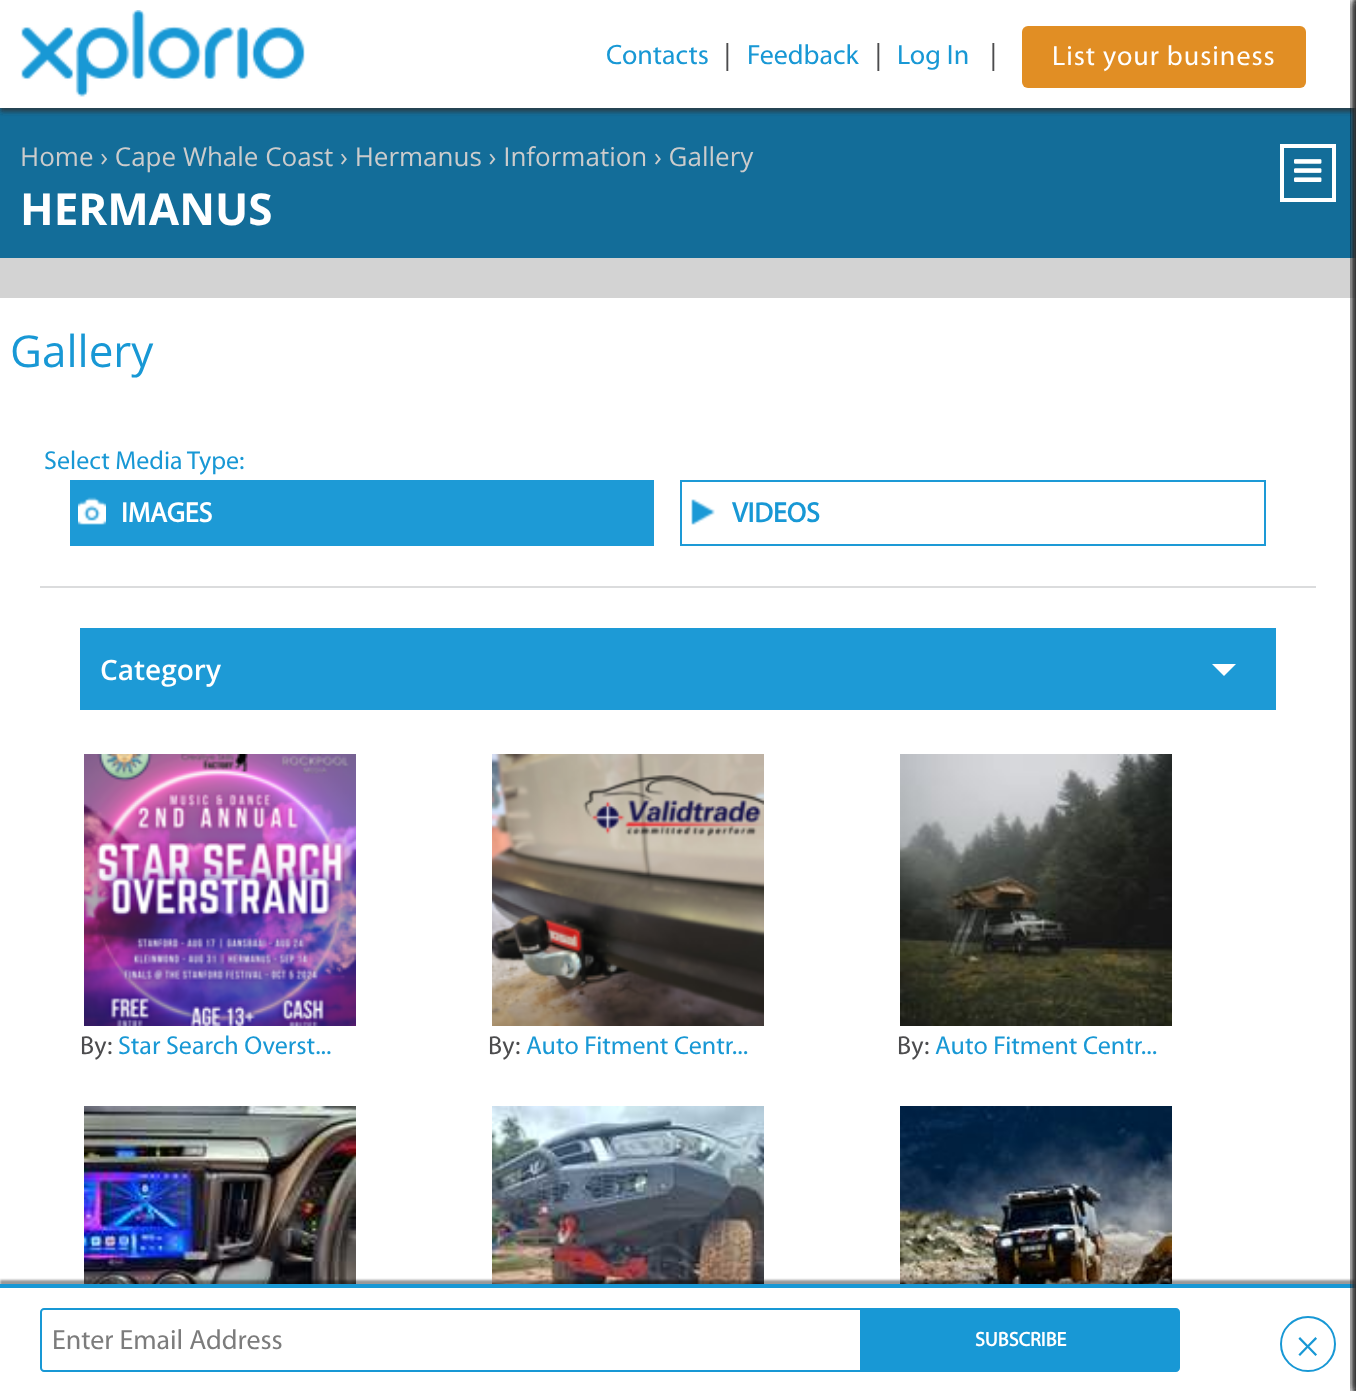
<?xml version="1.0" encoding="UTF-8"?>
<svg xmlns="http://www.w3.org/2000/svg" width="1356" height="1391">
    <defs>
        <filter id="blur1" x="-50%" y="-200%" width="200%" height="500%"><feGaussianBlur stdDeviation="2"/></filter>
        <filter id="blur2" x="-50%" y="-200%" width="200%" height="500%"><feGaussianBlur stdDeviation="1"/></filter>
        <filter id="blur3" x="-50%" y="-200%" width="200%" height="500%"><feGaussianBlur stdDeviation="4"/></filter>
    </defs>
    <rect width="100%" height="100%" fill="#D3D3D3"/>
    <rect x="0" y="108" width="1356" height="150" fill="#136D99"/>
    <rect x="0" y="4" width="1356" height="108" fill="#2D2D2D" fill-opacity="0.7" filter="url(#blur1)"/>
    <rect x="0" y="0" width="1356" height="108" fill="#FFFFFF"/>
    <image x="21" y="10" width="284" height="87" href="img_01.png"/>
    <text x="606" y="64" font-family="Myriad" font-size="28" fill="#1898D5">Contacts</text>
    <text x="724" y="64" font-family="Myriad" font-size="28" fill="#4C4C4E">|</text>
    <text x="747" y="64" font-family="Myriad" font-size="28" fill="#1898D5">Feedback</text>
    <text x="875" y="64" font-family="Myriad" font-size="28" fill="#4C4C4E">|</text>
    <text x="897" y="64" font-family="Myriad" font-size="28" fill="#1898D5">Log In</text>
    <text x="990" y="64" font-family="Myriad" font-size="28" fill="#4C4C4E">|</text>
    <rect x="1022" y="26" width="284" height="62" rx="6" fill="#E18E24"/>
    <text x="1052" y="65" font-family="Myriad" font-size="28" letter-spacing="1" fill="#FFFFFF">List your business</text>
    <rect x="0" y="298" width="1356" height="986" fill="#FFFFFF"/>
    <image x="84" y="1106" width="272" height="178" href="img_08.png"/>
    <image x="492" y="1106" width="272" height="178" href="img_09.png"/>
    <image x="900" y="1106" width="272" height="178" href="img_10.png"/>
    <rect x="0" y="1280" width="1356" height="108" fill="#000000" fill-opacity="0.4" filter="url(#blur2)"/>
    <rect x="0" y="1288" width="1356" height="103" fill="#FFFFFF"/>
    <rect x="0" y="1284" width="1356" height="4" fill="#1898D5"/>
    <rect x="1356" y="0" width="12" height="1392" fill="#2D2D2D" fill-opacity="0.7" filter="url(#blur3)"/>
    <rect x="1356" y="0" width="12" height="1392" fill="#2D2D2D" fill-opacity="0.7" filter="url(#blur3)"/>
    <rect x="1356" y="0" width="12" height="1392" fill="#2D2D2D" fill-opacity="0.7" filter="url(#blur3)"/>
    <rect x="1356" y="0" width="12" height="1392" fill="#2D2D2D" fill-opacity="0.7" filter="url(#blur3)"/>
    <rect x="1356" y="0" width="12" height="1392" fill="#2D2D2D" fill-opacity="0.7" filter="url(#blur3)"/>
    <rect x="1356" y="0" width="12" height="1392" fill="#2D2D2D" fill-opacity="0.7" filter="url(#blur3)"/>
    <rect x="1356" y="0" width="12" height="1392" fill="#2D2D2D" fill-opacity="0.7" filter="url(#blur3)"/>
    <text x="20" y="166" font-family="Open Sans" font-size="26" fill="#CCCCCC">Home › Cape Whale Coast › Hermanus › Information › Gallery</text>
    <text x="20" y="225" font-family="Open Sans" font-size="44" font-weight="700" fill="#FFFFFF">HERMANUS</text>
    <rect x="1282" y="146" width="52" height="54" fill="none" stroke="#FFFFFF" stroke-width="4"/>
    <image x="1294" y="159" width="28" height="23" href="img_02.png"/>
    <text x="10" y="367" font-family="Open Sans" font-size="44" fill="#1898D5">Gallery</text>
    <rect x="40" y="586" width="1276" height="2" fill="#DBDCDD"/>
    <text x="44" y="469" font-family="Myriad" font-size="26" fill="#1898D5">Select Media Type:</text>
    <rect x="72" y="482" width="580" height="62" fill="#1D9AD6"/>
    <image x="78" y="482" width="28" height="43" href="img_03.png"/>
    <rect x="71" y="481" width="582" height="64" fill="none" stroke="#1D9AD6" stroke-width="2"/>
    <text x="121" y="522" font-family="Myriad" font-size="28" font-weight="700" fill="#FFFFFF">IMAGES</text>
    <image x="691" y="499" width="24" height="26" href="img_04.png"/>
    <rect x="681" y="481" width="584" height="64" fill="none" stroke="#1D9AD6" stroke-width="2"/>
    <text x="732" y="522" font-family="Myriad" font-size="28" font-weight="700" fill="#1898D5">VIDEOS</text>
    <rect x="80" y="628" width="1196" height="82" fill="#1D9AD6"/>
    <text x="100" y="680" font-family="Open Sans" font-size="28" font-weight="600" fill="#FFFFFF">Category</text>
    <path d="M 1212 664 H 1236 L 1224 676 Z" fill="#FFFFFF"/>
    <image x="84" y="754" width="272" height="272" href="img_05.png"/>
    <text x="80" y="1054" font-family="Myriad" font-size="26" fill="#4C4C4E">By:</text>
    <text x="118" y="1054" font-family="Myriad" font-size="26" fill="#1898D5">Star Search Overst...</text>
    <image x="492" y="754" width="272" height="272" href="img_06.png"/>
    <text x="488" y="1054" font-family="Myriad" font-size="26" fill="#4C4C4E">By:</text>
    <text x="526" y="1054" font-family="Myriad" font-size="26" fill="#1898D5">Auto Fitment Centr...</text>
    <image x="900" y="754" width="272" height="272" href="img_07.png"/>
    <text x="897" y="1054" font-family="Myriad" font-size="26" fill="#4C4C4E">By:</text>
    <text x="935" y="1054" font-family="Myriad" font-size="26" fill="#1898D5">Auto Fitment Centr...</text>
    <path d="M 44 1309 H 861 V 1371 H 44 C 42.5 1371 41 1369.5 41 1368 V 1312 C 41 1310.5 42.5 1309 44 1309 Z" fill="none" stroke="#1898D5" stroke-width="2"/>
    <text x="52" y="1349" font-family="Myriad" font-size="28" fill="#7C7C7C">Enter Email Address</text>
    <path d="M 862 1308 H 1176 C 1178 1308 1180 1310 1180 1312 V 1368 C 1180 1370 1178 1372 1176 1372 H 862 Z" fill="#1898D5"/>
    <text x="975" y="1346" font-family="Myriad" font-size="20" font-weight="700" fill="#FFFFFF">SUBSCRIBE</text>
    <circle cx="1308" cy="1344" r="27" fill="none" stroke="#1898D5" stroke-width="2"/>
    <text x="1297" y="1356" font-family="Myriad" font-size="36" fill="#1898D5">×</text>
</svg>
